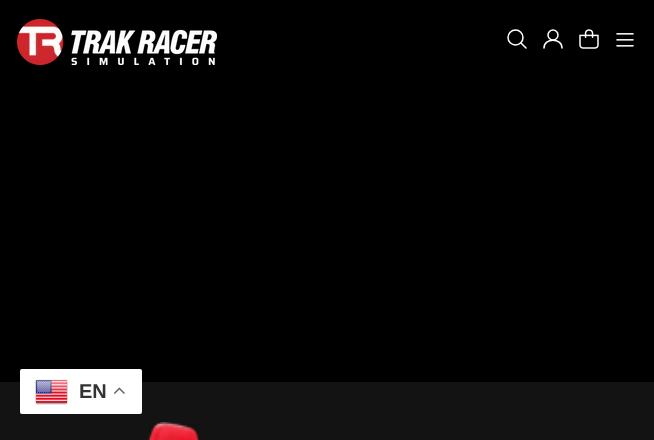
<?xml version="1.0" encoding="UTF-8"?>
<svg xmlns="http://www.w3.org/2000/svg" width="654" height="440">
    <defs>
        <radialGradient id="g1" gradientUnits="userSpaceOnUse" cx="0" cy="0" r="1" gradientTransform="matrix(733 0 0 445 319 637)"><stop offset="0" stop-color="#000000" stop-opacity="0.3"/><stop offset="0.6" stop-color="#000000" stop-opacity="0"/></radialGradient>
    </defs>
    <rect width="100%" height="100%" fill="#000000"/>
    <image x="17" y="19" width="200" height="46" href="img_01.png"/>
    <circle cx="515.5" cy="37.5" r="7.5" fill="none" stroke="#FFFFFF" stroke-width="1.5"/>
    <path d="M 526 48 L 521 43" fill="none" stroke="#FFFFFF" stroke-width="1.5" stroke-linecap="round"/>
    <circle cx="553" cy="35" r="5" fill="none" stroke="#FFFFFF" stroke-width="1.5"/>
    <path d="M 562 48 C 562 37.5 544 37.5 544 48" fill="none" stroke="#FFFFFF" stroke-width="1.5" stroke-linecap="round"/>
    <image x="579" y="29" width="20" height="20" href="img_02.png"/>
    <image x="616" y="33" width="18" height="14" href="img_03.png"/>
    <rect x="0" y="382" width="654" height="58" fill="#131313"/>
    <image x="147" y="422" width="53" height="18" href="img_04.png"/>
    <rect x="148" y="422" width="51" height="18" fill="url(#g1)"/>
    <rect x="20" y="369" width="122" height="45" rx="2" fill="#FFFFFF"/>
    <image x="35" y="379" width="33" height="26" href="img_05.png"/>
    <text x="79" y="398" font-family="Liberation Sans" font-size="20" font-weight="700" fill="#333333">EN</text>
    <image x="114" y="387" width="11" height="7" href="img_06.png"/>
</svg>
